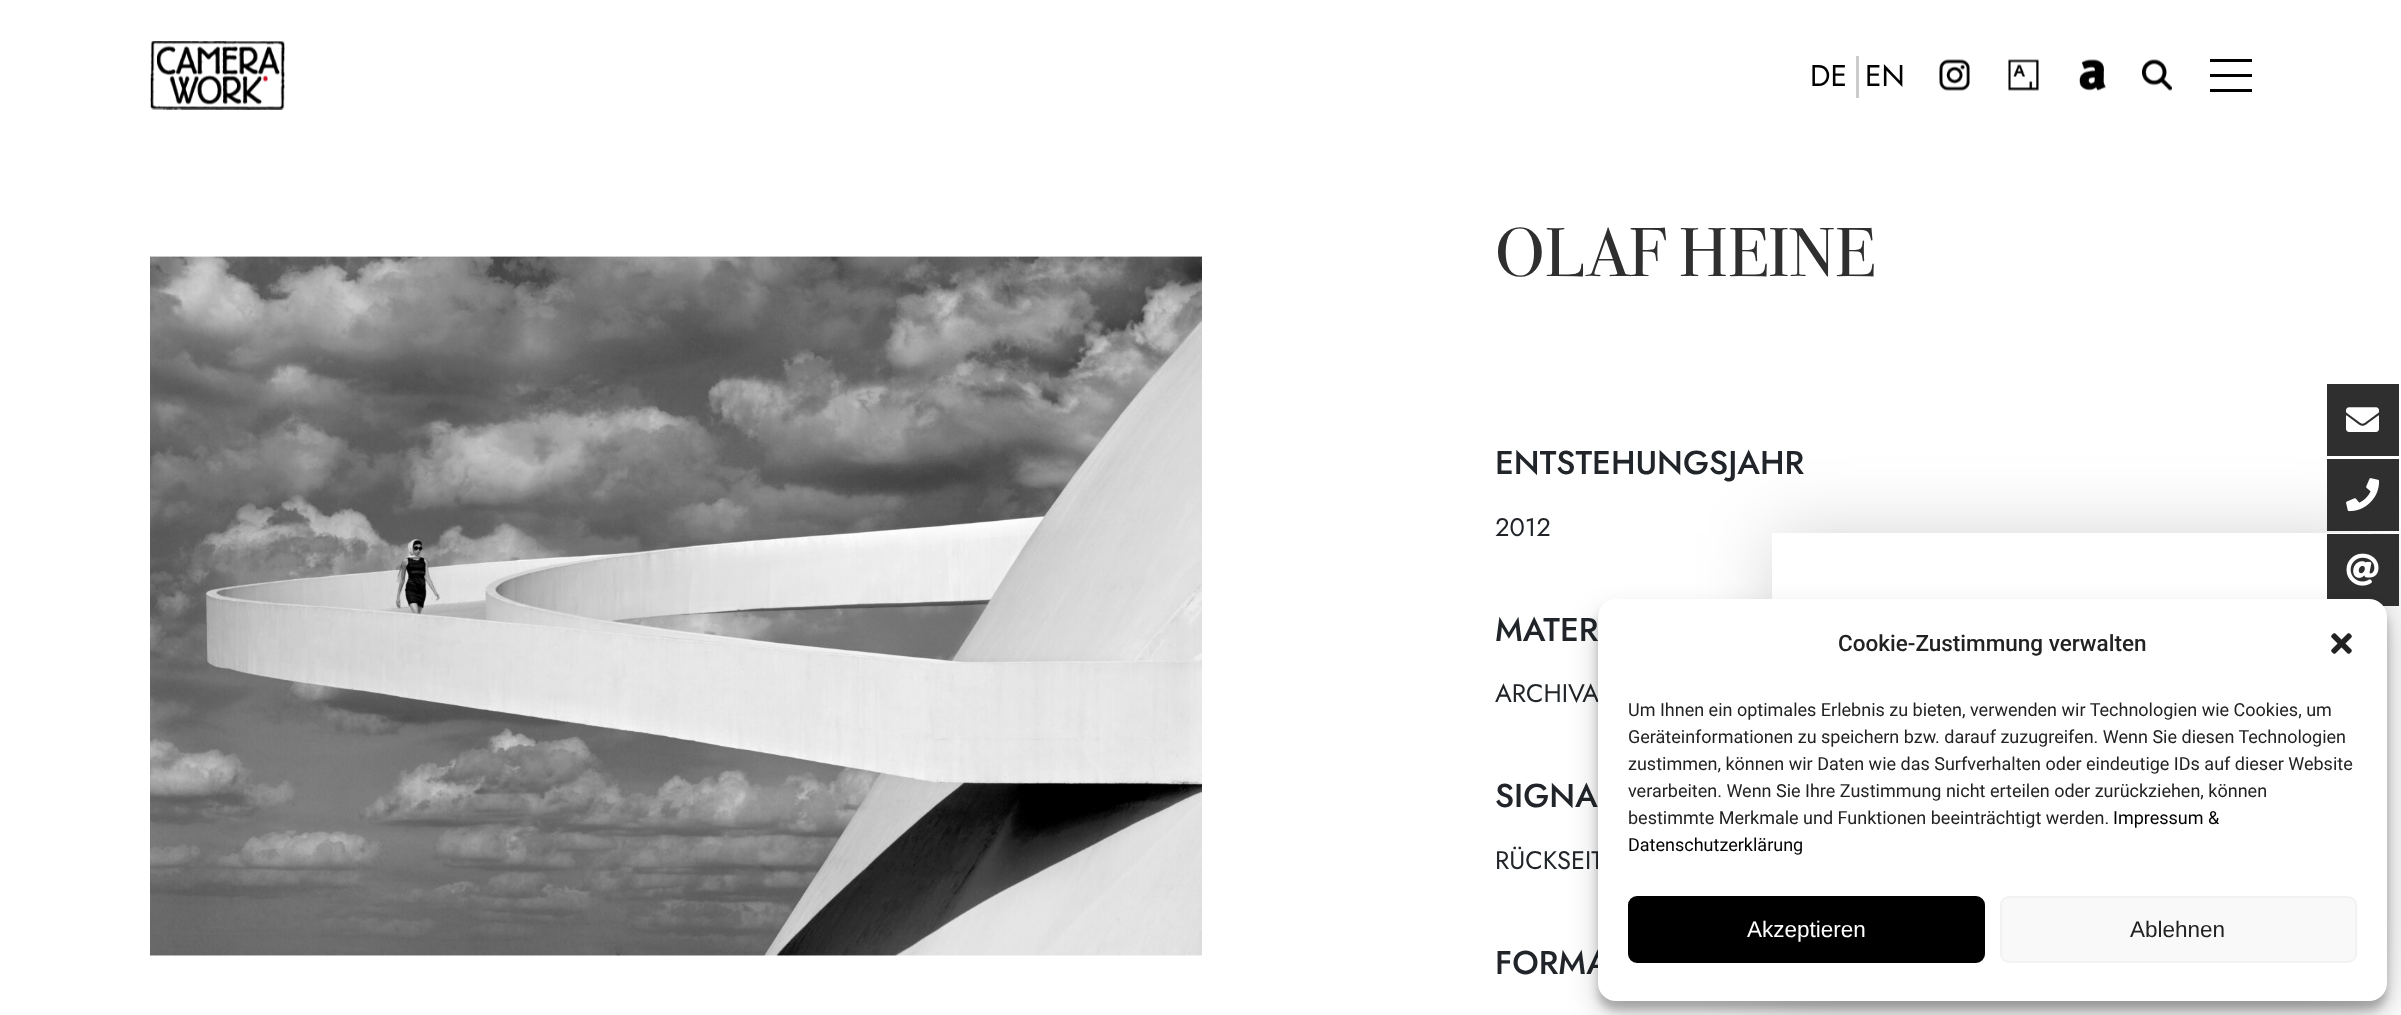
<?xml version="1.0" encoding="UTF-8"?>
<svg xmlns="http://www.w3.org/2000/svg" width="2401" height="1015">
    <defs>
        <filter id="blur1" x="-50%" y="-200%" width="200%" height="500%"><feGaussianBlur stdDeviation="37"/></filter>
        <filter id="blur2" x="-50%" y="-200%" width="200%" height="500%"><feGaussianBlur stdDeviation="4.5"/></filter>
        <filter id="blur3" x="-50%" y="-200%" width="200%" height="500%"><feGaussianBlur stdDeviation="15"/></filter>
    </defs>
    <rect width="100%" height="100%" fill="#FFFFFF"/>
    <image x="150" y="41" width="135" height="69" href="img_01.png"/>
    <text x="1810" y="86" font-family="Jost" font-size="30" fill="#000000">DE</text>
    <rect x="1856" y="56" width="3" height="42" fill="#CCCCCC"/>
    <text x="1865" y="86" font-family="Jost" font-size="30" fill="#000000">EN</text>
    <image x="1939" y="59" width="31" height="32" href="img_02.png"/>
    <image x="2008" y="59" width="31" height="32" href="img_03.png"/>
    <image x="2079" y="59" width="27" height="32" href="img_04.png"/>
    <image x="2142" y="59" width="30" height="32" href="img_05.png"/>
    <rect x="2210" y="59" width="42" height="3" fill="#000000"/>
    <rect x="2210" y="74" width="42" height="3" fill="#000000"/>
    <rect x="2210" y="89" width="42" height="3" fill="#000000"/>
    <image x="150" y="256" width="1052" height="700" href="img_06.png"/>
    <text x="1495" y="276" font-family="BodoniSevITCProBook" font-size="69" fill="#2F2F2F">OLAF HEINE</text>
    <text x="1495" y="474" font-family="Jost" font-size="33" font-weight="500" fill="#212529">ENTSTEHUNGSJAHR</text>
    <text x="1495" y="536" font-family="Jost" font-size="25.5" fill="#212529">2012</text>
    <text x="1495" y="641" font-family="Jost" font-size="33" font-weight="500" fill="#212529">MATER</text>
    <text x="1495" y="702" font-family="Jost" font-size="25.5" fill="#212529">ARCHIVA</text>
    <text x="1495" y="807" font-family="Jost" font-size="33" font-weight="500" fill="#212529">SIGNA</text>
    <text x="1495" y="869" font-family="Jost" font-size="25.5" fill="#212529">RÜCKSEIT</text>
    <text x="1495" y="974" font-family="Jost" font-size="33" font-weight="500" fill="#212529">FORMA</text>
    <rect x="1773" y="534" width="600" height="453" fill="#000000" fill-opacity="0.17" filter="url(#blur1)"/>
    <rect x="2327" y="384" width="72" height="72" fill="#2F2F2F"/>
    <image x="2346" y="407" width="33" height="25" href="img_07.png"/>
    <rect x="2327" y="459" width="72" height="72" fill="#2F2F2F"/>
    <image x="2346" y="478" width="34" height="34" href="img_08.png"/>
    <rect x="1772" y="533" width="600" height="66" fill="#FFFFFF"/>
    <rect x="2327" y="534" width="72" height="72" fill="#2F2F2F"/>
    <image x="2346" y="553" width="33" height="33" href="img_09.png"/>
    <rect x="1598" y="608" width="789" height="402" rx="18" fill="#000000" fill-opacity="0.23" filter="url(#blur2)"/>
    <rect x="1598" y="614" width="789" height="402" rx="18" fill="#000000" fill-opacity="0.19" filter="url(#blur3)"/>
    <rect x="1598" y="599" width="789" height="402" rx="18" fill="#FFFFFF"/>
    <text x="1838" y="651" font-family="Roboto" font-size="22.5" font-weight="500" fill="#222222">Cookie-Zustimmung verwalten</text>
    <image x="2331" y="633" width="21" height="21" href="img_10.png"/>
    <text font-family="Roboto" font-size="18" fill="#222222">
        <tspan x="1628" y="716">Um Ihnen ein optimales Erlebnis zu bieten, verwenden wir Technologien wie Cookies, um</tspan>
        <tspan x="1628" y="743">Geräteinformationen zu speichern bzw. darauf zuzugreifen. Wenn Sie diesen Technologien</tspan>
        <tspan x="1628" y="770">zustimmen, können wir Daten wie das Surfverhalten oder eindeutige IDs auf dieser Website</tspan>
        <tspan x="1628" y="797">verarbeiten. Wenn Sie Ihre Zustimmung nicht erteilen oder zurückziehen, können</tspan>
        <tspan x="1628" y="824">bestimmte Merkmale und Funktionen beeinträchtigt werden.</tspan>
    </text>
    <text x="2113" y="824" font-family="Roboto" font-size="18" fill="#000000">Impressum &amp;</text>
    <text x="1628" y="851" font-family="Roboto" font-size="18" fill="#000000">Datenschutzerklärung</text>
    <rect x="1629" y="897" width="355" height="65" rx="8" fill="#000000" stroke="#000000" stroke-width="2"/>
    <text x="1747" y="937" font-family="Liberation Sans" font-size="22.5" fill="#FFFFFF">Akzeptieren</text>
    <rect x="2001" y="897" width="355" height="65" rx="8" fill="#F9F9F9" stroke="#F2F2F2" stroke-width="2"/>
    <text x="2130" y="937" font-family="Liberation Sans" font-size="22.5" fill="#222222">Ablehnen</text>
</svg>
